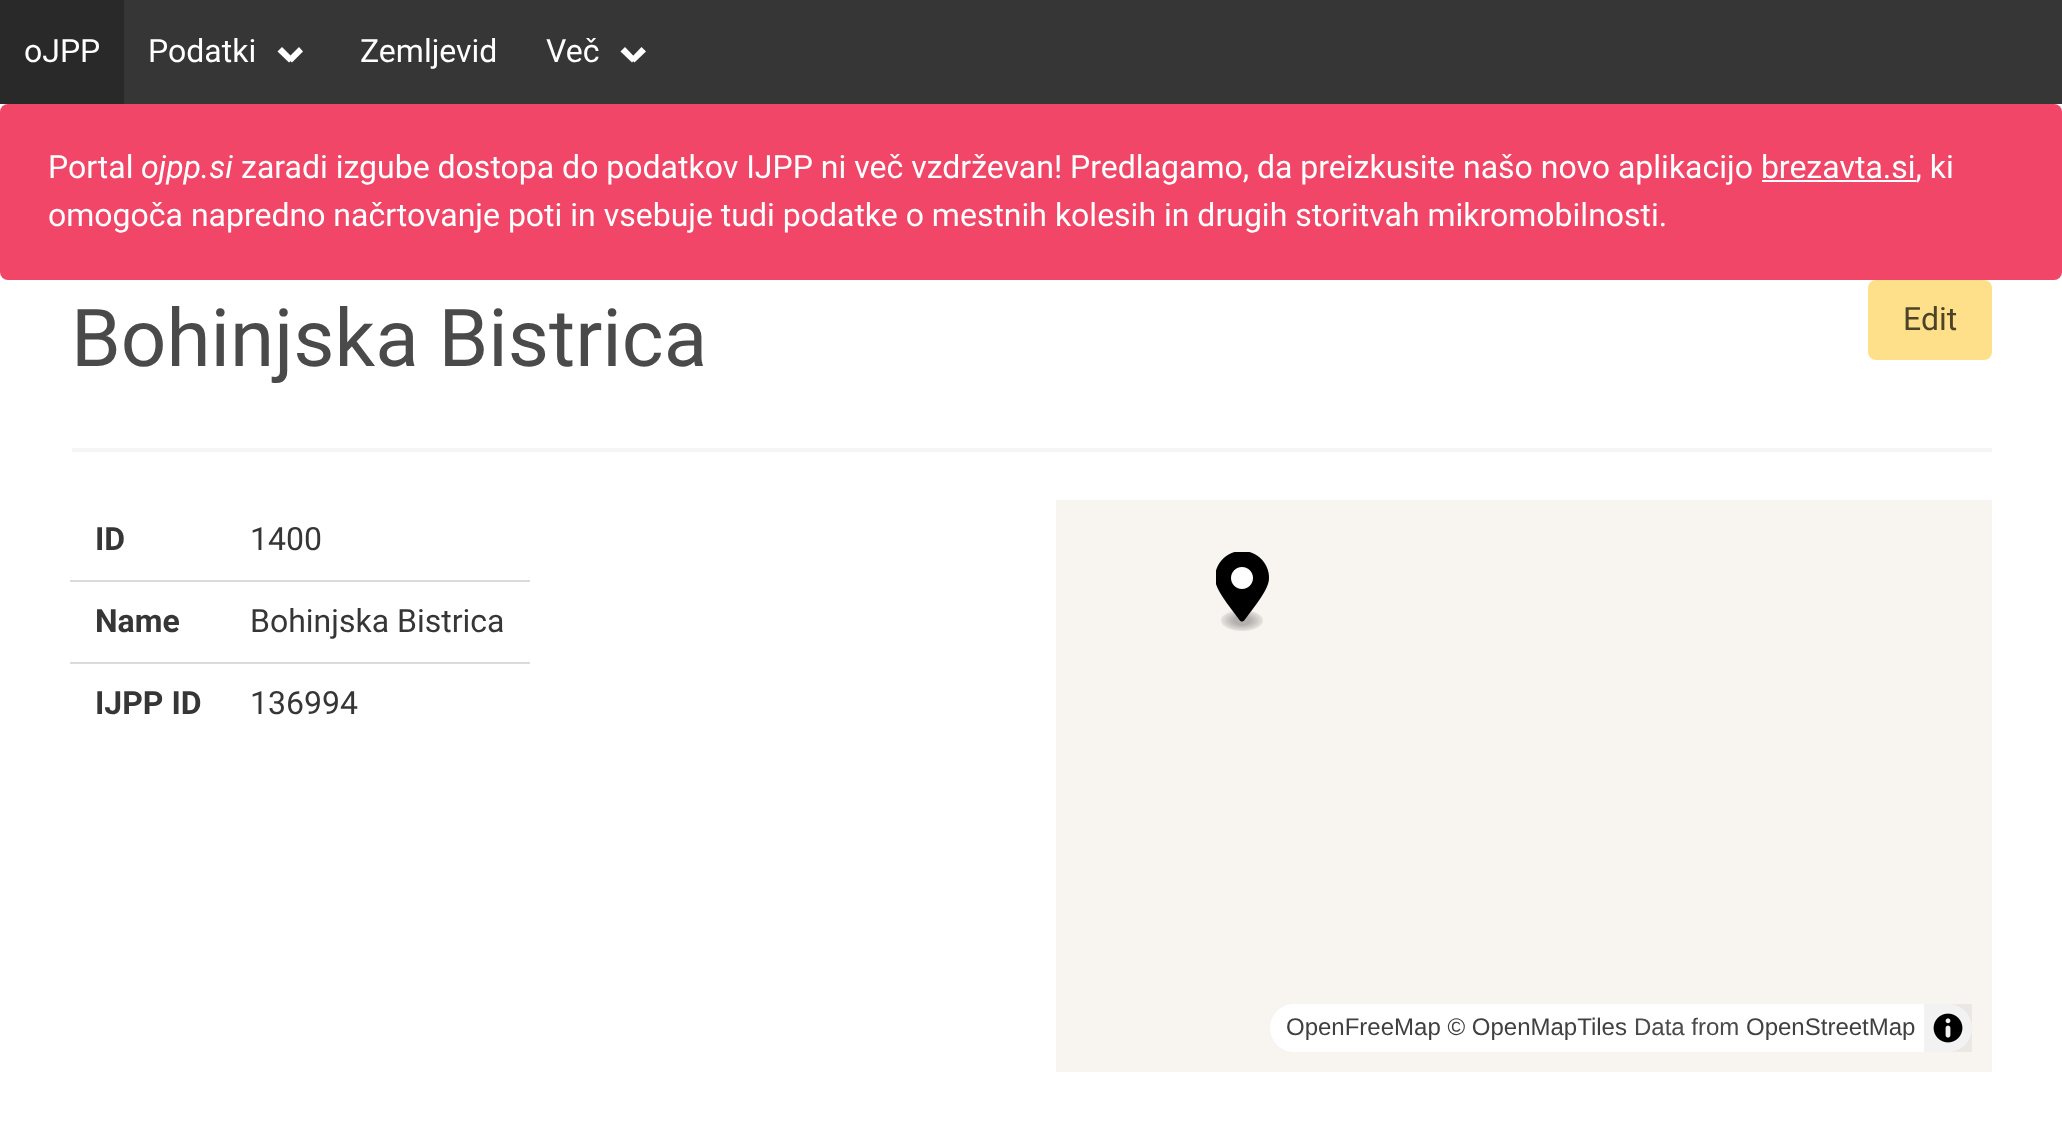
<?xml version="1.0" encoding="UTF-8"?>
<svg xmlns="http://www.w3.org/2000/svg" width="2062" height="1142">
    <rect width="100%" height="100%" fill="#FFFFFF"/>
    <rect x="124" y="0" width="1938" height="104" fill="#363636"/>
    <rect x="0" y="0" width="124" height="104" fill="#292929"/>
    <text x="24" y="62" font-family="Roboto" font-size="32" fill="#FFFFFF">oJPP</text>
    <text x="148" y="62" font-family="Roboto" font-size="32" fill="#FFFFFF">Podatki</text>
    <path d="M 287.5 58.5 L 299 47 L 303 51.5 L 292 62.5 Z" fill="#FFFFFF"/>
    <path d="M 277.5 51.5 L 282 47 L 293.5 58.5 L 289 62.5 Z" fill="#FFFFFF"/>
    <text x="360" y="62" font-family="Roboto" font-size="32" fill="#FFFFFF">Zemljevid</text>
    <text x="546" y="62" font-family="Roboto" font-size="32" fill="#FFFFFF">Več</text>
    <path d="M 630.5 58.5 L 641.5 47 L 646 51.5 L 634.5 62.5 Z" fill="#FFFFFF"/>
    <path d="M 620.5 51.5 L 625 47 L 636 58.5 L 632 62.5 Z" fill="#FFFFFF"/>
    <rect x="0" y="104" width="2062" height="176" rx="8" fill="#F14668"/>
    <text x="48" y="178" font-family="Roboto" font-size="32" fill="#FFFFFF">Portal</text>
    <text x="141" y="178" font-family="Roboto" font-size="32" font-style="italic" fill="#FFFFFF">ojpp.si</text>
    <text x="241" y="178" font-family="Roboto" font-size="32" fill="#FFFFFF">zaradi izgube dostopa do podatkov IJPP ni več vzdrževan! Predlagamo, da preizkusite našo novo aplikacijo brezavta.si, ki</text>
    <rect x="1762" y="180" width="154" height="2" fill="#FFFFFF"/>
    <text x="48" y="226" font-family="Roboto" font-size="32" fill="#FFFFFF">omogoča napredno načrtovanje poti in vsebuje tudi podatke o mestnih kolesih in drugih storitvah mikromobilnosti.</text>
    <text x="71" y="366" font-family="Roboto" font-size="80" fill="#4A4A4A">Bohinjska Bistrica</text>
    <rect x="1868" y="280" width="124" height="80" rx="8" fill="#FFE08A"/>
    <text x="1903" y="330" font-family="Roboto" font-size="32" fill="#4D4329">Edit</text>
    <rect x="72" y="448" width="1920" height="4" fill="#F5F5F5"/>
    <text x="95" y="550" font-family="Roboto" font-size="32" font-weight="700" fill="#363636">ID</text>
    <rect x="70" y="580" width="460" height="2" fill="#DBDBDB"/>
    <text x="250" y="550" font-family="Roboto" font-size="32" fill="#363636">1400</text>
    <text x="95" y="632" font-family="Roboto" font-size="32" font-weight="700" fill="#363636">Name</text>
    <rect x="70" y="662" width="460" height="2" fill="#DBDBDB"/>
    <text x="250" y="632" font-family="Roboto" font-size="32" fill="#363636">Bohinjska Bistrica</text>
    <text x="95" y="714" font-family="Roboto" font-size="32" font-weight="700" fill="#363636">IJPP ID</text>
    <text x="250" y="714" font-family="Roboto" font-size="32" fill="#363636">136994</text>
    <rect x="1056" y="500" width="936" height="572" fill="#F8F4F0"/>
    <image x="1216" y="552" width="53" height="79" href="img_01.png"/>
    <rect x="1270" y="1004" width="702" height="48" rx="24" fill="#FFFFFF"/>
    <text x="1286" y="1035" font-family="Liberation Sans" font-size="24" fill="#404040">OpenFreeMap © OpenMapTiles</text>
    <text x="1634" y="1035" font-family="Liberation Sans" font-size="24" fill="#4A4A4A">Data from</text>
    <text x="1746" y="1035" font-family="Liberation Sans" font-size="24" fill="#404040">OpenStreetMap</text>
    <rect x="1924" y="1004" width="48" height="48" fill="#000000" fill-opacity="0.05"/>
    <image x="1933" y="1013" width="30" height="30" href="img_02.png"/>
</svg>
